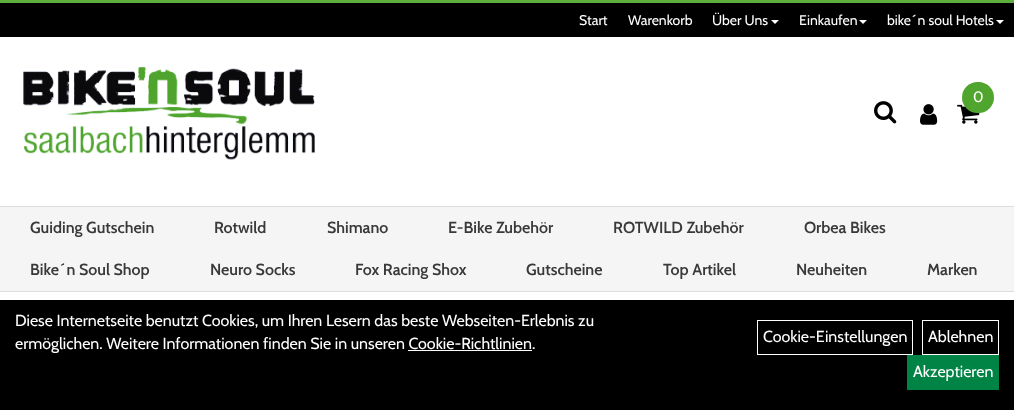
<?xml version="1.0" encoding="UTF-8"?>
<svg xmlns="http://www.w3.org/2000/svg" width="1014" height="410">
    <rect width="100%" height="100%" fill="#FFFFFF"/>
    <rect x="0" y="3" width="1014" height="34" fill="#000000"/>
    <rect x="0" y="0" width="1014" height="3" fill="#5EAE3D"/>
    <text x="579" y="25" font-family="Cabin" font-size="14" fill="#FFFFFF">Start</text>
    <text x="628" y="25" font-family="Cabin" font-size="14" fill="#FFFFFF">Warenkorb</text>
    <text x="712" y="25" font-family="Cabin" font-size="14" fill="#FFFFFF">Über Uns</text>
    <path d="M 771 20 H 779 L 775 24 Z" fill="#FFFFFF"/>
    <text x="799" y="25" font-family="Cabin" font-size="14" fill="#FFFFFF">Einkaufen</text>
    <path d="M 859 20 H 867 L 863 24 Z" fill="#FFFFFF"/>
    <text x="887" y="25" font-family="Cabin" font-size="14" fill="#FFFFFF">bike´n soul Hotels</text>
    <path d="M 996 20 H 1004 L 1000 24 Z" fill="#FFFFFF"/>
    <image x="23" y="67" width="292" height="93" href="img_01.png"/>
    <image x="957" y="104" width="23" height="20" href="img_02.png"/>
    <rect x="962" y="82" width="32" height="31" rx="15.5" fill="#50A52E"/>
    <text x="973" y="102" font-family="Cabin" font-size="15" fill="#FFFFFF">0</text>
    <image x="874" y="101" width="23" height="23" href="img_03.png"/>
    <image x="920" y="104" width="18" height="21" href="img_04.png"/>
    <rect x="0" y="207" width="1014" height="84" fill="#F5F5F5"/>
    <rect x="0" y="206" width="1014" height="1" fill="#DDDDDD"/>
    <rect x="0" y="291" width="1014" height="1" fill="#DDDDDD"/>
    <text x="30" y="233" font-family="Cabin" font-size="16" font-weight="600" fill="#393939">Guiding Gutschein</text>
    <text x="214" y="233" font-family="Cabin" font-size="16" font-weight="600" fill="#393939">Rotwild</text>
    <text x="327" y="233" font-family="Cabin" font-size="16" font-weight="600" fill="#393939">Shimano</text>
    <text x="448" y="233" font-family="Cabin" font-size="16" font-weight="600" fill="#393939">E-Bike Zubehör</text>
    <text x="613" y="233" font-family="Cabin" font-size="16" font-weight="600" fill="#393939">ROTWILD Zubehör</text>
    <text x="804" y="233" font-family="Cabin" font-size="16" font-weight="600" fill="#393939">Orbea Bikes</text>
    <text x="30" y="275" font-family="Cabin" font-size="16" font-weight="600" fill="#393939">Bike´n Soul Shop</text>
    <text x="210" y="275" font-family="Cabin" font-size="16" font-weight="600" fill="#393939">Neuro Socks</text>
    <text x="355" y="275" font-family="Cabin" font-size="16" font-weight="600" fill="#393939">Fox Racing Shox</text>
    <text x="526" y="275" font-family="Cabin" font-size="16" font-weight="600" fill="#393939">Gutscheine</text>
    <text x="663" y="275" font-family="Cabin" font-size="16" font-weight="600" fill="#393939">Top Artikel</text>
    <text x="796" y="275" font-family="Cabin" font-size="16" font-weight="600" fill="#393939">Neuheiten</text>
    <text x="927" y="275" font-family="Cabin" font-size="16" font-weight="600" fill="#393939">Marken</text>
    <rect x="0" y="300" width="1014" height="110" fill="#000000"/>
    <text font-family="Cabin" font-size="16" fill="#FFFFFF">
        <tspan x="15" y="326">Diese Internetseite benutzt Cookies, um Ihren Lesern das beste Webseiten-Erlebnis zu</tspan>
        <tspan x="15" y="349">ermöglichen. Weitere Informationen finden Sie in unseren Cookie-Richtlinien.</tspan>
    </text>
    <rect x="408" y="350" width="124" height="1" fill="#FFFFFF"/>
    <rect x="757.5" y="320.5" width="155" height="34" fill="none" stroke="#FFFFFF"/>
    <text x="763" y="342" font-family="Cabin" font-size="16" fill="#FFFFFF">Cookie-Einstellungen</text>
    <rect x="922.5" y="320.5" width="76" height="34" fill="none" stroke="#FFFFFF"/>
    <text x="928" y="342" font-family="Cabin" font-size="16" fill="#FFFFFF">Ablehnen</text>
    <rect x="907" y="355" width="92" height="35" fill="#008446"/>
    <text x="913" y="377" font-family="Cabin" font-size="16" fill="#FFFFFF">Akzeptieren</text>
</svg>
